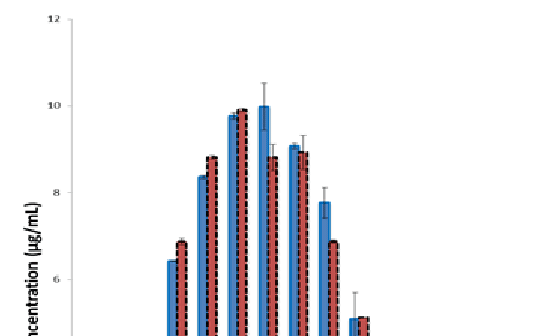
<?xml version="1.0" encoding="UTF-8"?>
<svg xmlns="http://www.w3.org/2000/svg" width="550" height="336">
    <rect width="100%" height="100%" fill="#FFFFFF"/>
    <image x="22" y="15" width="349" height="321" href="img_01.png"/>
</svg>
